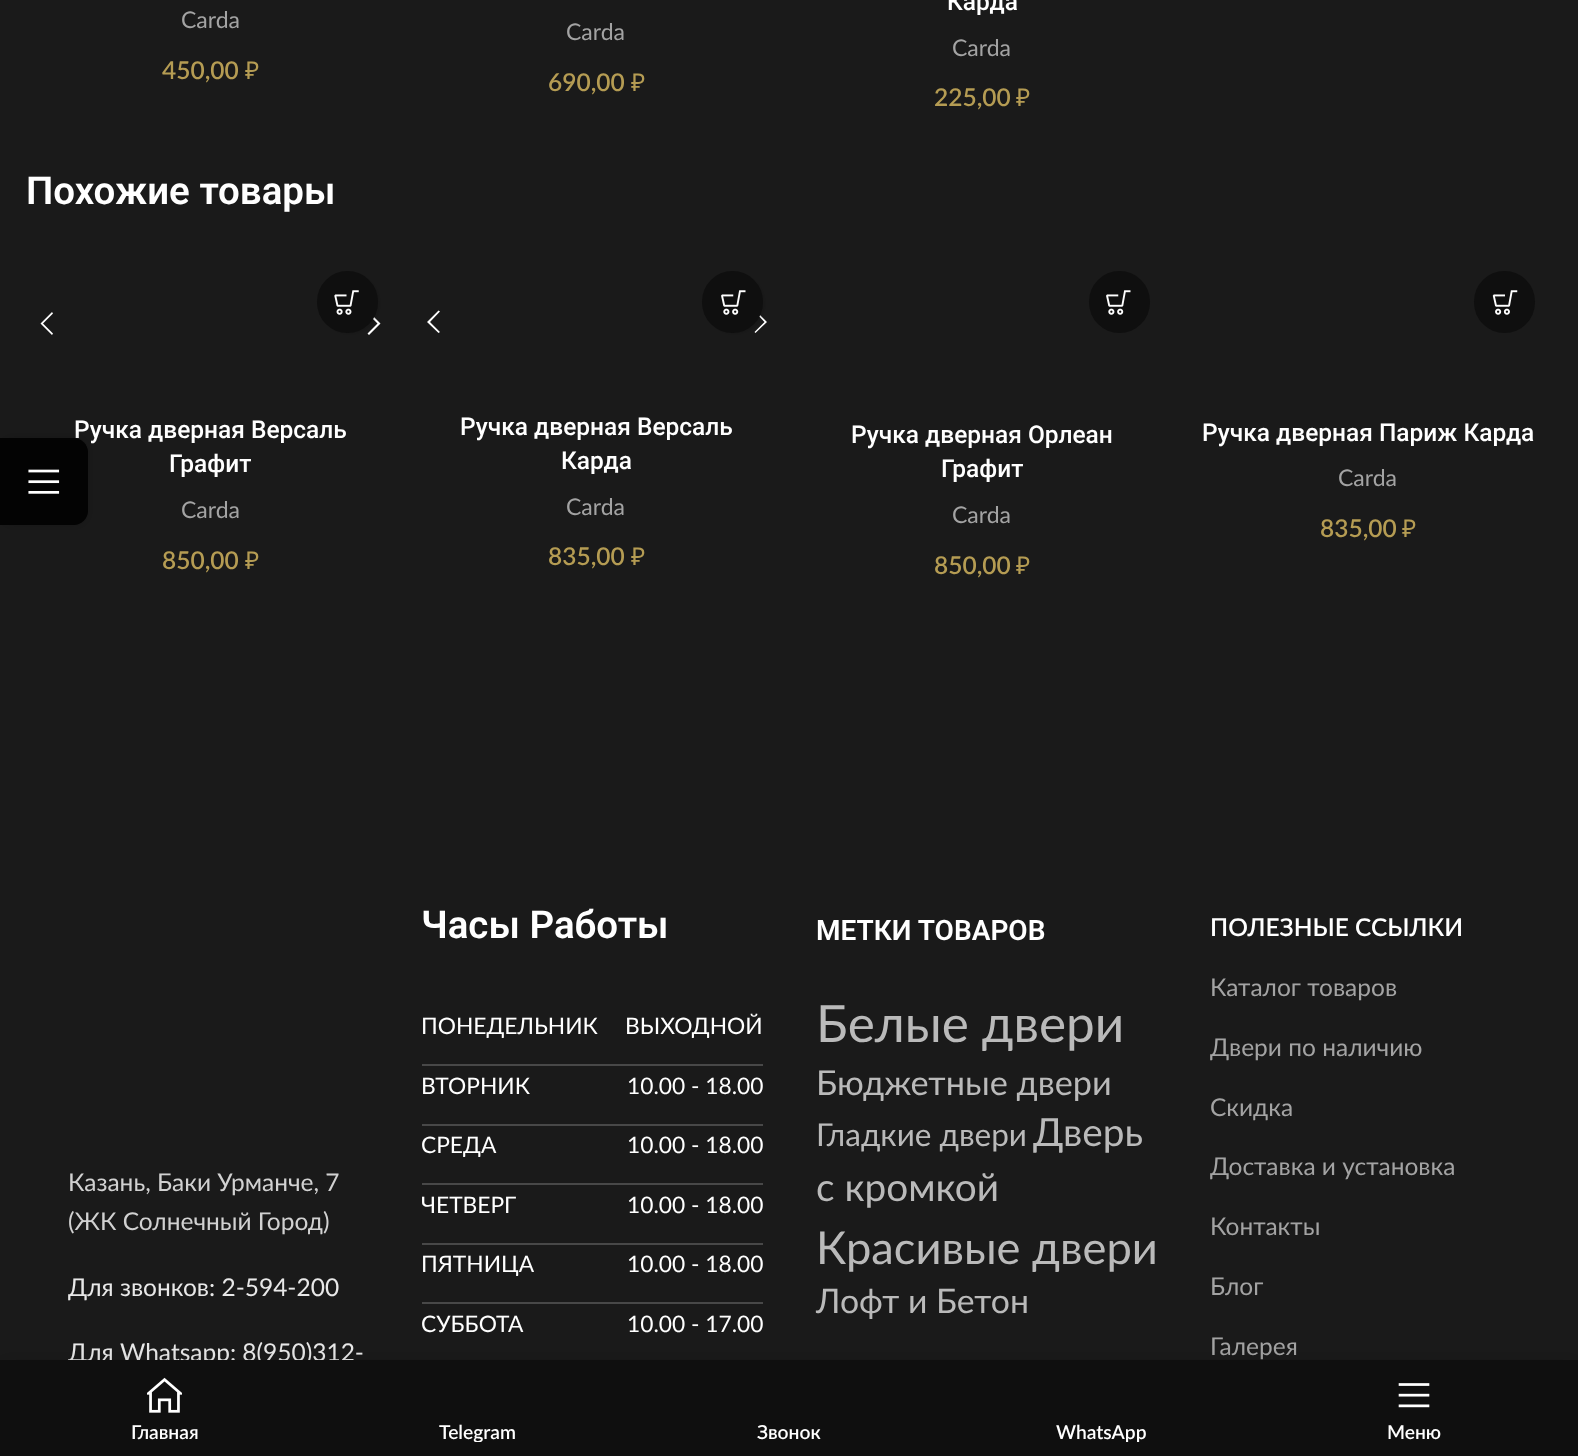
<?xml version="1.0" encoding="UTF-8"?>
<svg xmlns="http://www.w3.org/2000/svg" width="1578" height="1456">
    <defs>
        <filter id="blur1" x="-50%" y="-200%" width="200%" height="500%"><feGaussianBlur stdDeviation="1"/></filter>
        <filter id="blur2" x="-50%" y="-200%" width="200%" height="500%"><feGaussianBlur stdDeviation="4.5"/></filter>
        <filter id="blur3" x="-50%" y="-200%" width="200%" height="500%"><feGaussianBlur stdDeviation="8"/></filter>
        <clipPath id="clip1"><rect x="338" y="1419" width="278" height="23"/></clipPath>
        <clipPath id="clip2"><rect x="963" y="1419" width="278" height="23"/></clipPath>
    </defs>
    <rect width="100%" height="100%" fill="#1A1A1A"/>
    <text x="181" y="28" font-family="Lato" font-size="23" fill="#A3A3A3">Carda</text>
    <text x="162" y="79" font-family="Lato" font-size="24.5" font-weight="600" fill="#B59C53">450,00</text>
    <text x="245" y="79" font-family="Noto Sans" font-size="24.5" fill="#B59C53">₽</text>
    <text x="566" y="40" font-family="Lato" font-size="23" fill="#A3A3A3">Carda</text>
    <text x="548" y="91" font-family="Lato" font-size="24.5" font-weight="600" fill="#B59C53">690,00</text>
    <text x="631" y="91" font-family="Noto Sans" font-size="24.5" fill="#B59C53">₽</text>
    <text x="947" y="10" font-family="Roboto" font-size="24.5" font-weight="500" fill="#FFFFFF">Карда</text>
    <text x="952" y="56" font-family="Lato" font-size="23" fill="#A3A3A3">Carda</text>
    <text x="934" y="106" font-family="Lato" font-size="24.5" font-weight="600" fill="#B59C53">225,00</text>
    <text x="1016" y="106" font-family="Noto Sans" font-size="24.5" fill="#B59C53">₽</text>
    <text x="26" y="204" font-family="Roboto" font-size="38.5" font-weight="600" fill="#FFFFFF">Похожие товары</text>
    <path d="M 53 313.5 L 52 312 L 40.5 323.5 L 52 335 L 53 333.5 L 43 323.5 Z" fill="#FFFFFF"/>
    <path d="M 367.5 313.5 L 377.5 323.5 L 367.5 333.5 L 369 335 L 380.5 323.5 L 369 312 Z" fill="#FFFFFF"/>
    <rect x="319" y="273" width="61" height="61" rx="30.5" fill="#000000" fill-opacity="0.1" filter="url(#blur1)"/>
    <rect x="317" y="271" width="61" height="62" rx="30.5" fill="#0F0F0F"/>
    <image x="334" y="290" width="25" height="25" href="img_01.png"/>
    <text x="74" y="438" font-family="Roboto" font-size="24.5" font-weight="500" fill="#FFFFFF">Ручка дверная Версаль</text>
    <text x="169" y="472" font-family="Roboto" font-size="24.5" font-weight="500" fill="#FFFFFF">Графит</text>
    <text x="181" y="518" font-family="Lato" font-size="23" fill="#A3A3A3">Carda</text>
    <text x="162" y="569" font-family="Lato" font-size="24.5" font-weight="600" fill="#B59C53">850,00</text>
    <text x="245" y="569" font-family="Noto Sans" font-size="24.5" fill="#B59C53">₽</text>
    <path d="M 440 311.5 L 438.5 310.5 L 427 322 L 438.5 333 L 440 332 L 430 322 Z" fill="#FFFFFF"/>
    <path d="M 754.5 311.5 L 764.5 322 L 754.5 332 L 755.5 333 L 767 322 L 755.5 310.5 Z" fill="#FFFFFF"/>
    <rect x="704" y="273" width="61" height="61" rx="30.5" fill="#000000" fill-opacity="0.1" filter="url(#blur1)"/>
    <rect x="702" y="271" width="61" height="62" rx="30.5" fill="#0F0F0F"/>
    <image x="721" y="290" width="25" height="25" href="img_02.png"/>
    <text x="460" y="435" font-family="Roboto" font-size="24.5" font-weight="500" fill="#FFFFFF">Ручка дверная Версаль</text>
    <text x="561" y="469" font-family="Roboto" font-size="24.5" font-weight="500" fill="#FFFFFF">Карда</text>
    <text x="566" y="515" font-family="Lato" font-size="23" fill="#A3A3A3">Carda</text>
    <text x="548" y="565" font-family="Lato" font-size="24.5" font-weight="600" fill="#B59C53">835,00</text>
    <text x="631" y="565" font-family="Noto Sans" font-size="24.5" fill="#B59C53">₽</text>
    <rect x="1089" y="271" width="61" height="62" rx="30.5" fill="#0F0F0F"/>
    <image x="1106" y="290" width="25" height="25" href="img_02.png"/>
    <text x="851" y="443" font-family="Roboto" font-size="24.5" font-weight="500" fill="#FFFFFF">Ручка дверная Орлеан</text>
    <text x="941" y="477" font-family="Roboto" font-size="24.5" font-weight="500" fill="#FFFFFF">Графит</text>
    <text x="952" y="523" font-family="Lato" font-size="23" fill="#A3A3A3">Carda</text>
    <text x="934" y="574" font-family="Lato" font-size="24.5" font-weight="600" fill="#B59C53">850,00</text>
    <text x="1016" y="574" font-family="Noto Sans" font-size="24.5" fill="#B59C53">₽</text>
    <rect x="1474" y="271" width="61" height="62" rx="30.5" fill="#0F0F0F"/>
    <image x="1492" y="290" width="26" height="25" href="img_03.png"/>
    <text x="1202" y="441" font-family="Roboto" font-size="24.5" font-weight="500" fill="#FFFFFF">Ручка дверная Париж Карда</text>
    <text x="1338" y="486" font-family="Lato" font-size="23" fill="#A3A3A3">Carda</text>
    <text x="1320" y="537" font-family="Lato" font-size="24.5" font-weight="600" fill="#B59C53">835,00</text>
    <text x="1402" y="537" font-family="Noto Sans" font-size="24.5" fill="#B59C53">₽</text>
    <text font-family="Lato" font-size="24.5" fill="#D1D1D1">
        <tspan x="68" y="1191">Казань, Баки Урманче, 7</tspan>
        <tspan x="68" y="1230">(ЖК Солнечный Город)</tspan>
    </text>
    <text x="68" y="1296" font-family="Lato" font-size="24.5" fill="#E8E8E8">Для звонков: 2-594-200</text>
    <text x="68" y="1361" font-family="Lato" font-size="24.5" fill="#E8E8E8">Для Whatsapp: 8(950)312-</text>
    <text x="421" y="938" font-family="Roboto" font-size="38.5" font-weight="600" fill="#FFFFFF">Часы Работы</text>
    <rect x="422" y="1064" width="341" height="2" fill="#484848"/>
    <text x="421" y="1034" font-family="Lato" font-size="22.75" fill="#FFFFFF">ПОНЕДЕЛЬНИК</text>
    <text x="625" y="1034" font-family="Lato" font-size="22.75" fill="#FFFFFF">ВЫХОДНОЙ</text>
    <rect x="422" y="1124" width="341" height="2" fill="#484848"/>
    <text x="421" y="1094" font-family="Lato" font-size="22.75" fill="#FFFFFF">ВТОРНИК</text>
    <text x="627" y="1094" font-family="Lato" font-size="22.75" fill="#FFFFFF">10.00 - 18.00</text>
    <rect x="422" y="1183" width="341" height="2" fill="#484848"/>
    <text x="421" y="1153" font-family="Lato" font-size="22.75" fill="#FFFFFF">СРЕДА</text>
    <text x="627" y="1153" font-family="Lato" font-size="22.75" fill="#FFFFFF">10.00 - 18.00</text>
    <rect x="422" y="1243" width="341" height="2" fill="#484848"/>
    <text x="421" y="1213" font-family="Lato" font-size="22.75" fill="#FFFFFF">ЧЕТВЕРГ</text>
    <text x="627" y="1213" font-family="Lato" font-size="22.75" fill="#FFFFFF">10.00 - 18.00</text>
    <rect x="422" y="1302" width="341" height="2" fill="#484848"/>
    <text x="421" y="1272" font-family="Lato" font-size="22.75" fill="#FFFFFF">ПЯТНИЦА</text>
    <text x="627" y="1272" font-family="Lato" font-size="22.75" fill="#FFFFFF">10.00 - 18.00</text>
    <text x="421" y="1332" font-family="Lato" font-size="22.75" fill="#FFFFFF">СУББОТА</text>
    <text x="627" y="1332" font-family="Lato" font-size="22.75" fill="#FFFFFF">10.00 - 17.00</text>
    <text x="816" y="940" font-family="Roboto" font-size="28" font-weight="600" fill="#FFFFFF">МЕТКИ ТОВАРОВ</text>
    <text x="816" y="1042" font-family="Lato" font-size="51.25" fill="#BABABA">Белые двери</text>
    <text x="816" y="1095" font-family="Lato" font-size="34.25" fill="#BABABA">Бюджетные двери</text>
    <text x="816" y="1146" font-family="Lato" font-size="31.5" fill="#BABABA">Гладкие двери</text>
    <text x="1033" y="1146" font-family="Lato" font-size="38.75" fill="#BABABA">Дверь</text>
    <text x="816" y="1201" font-family="Lato" font-size="38.75" fill="#BABABA">с кромкой</text>
    <text x="816" y="1264" font-family="Lato" font-size="45.25" fill="#BABABA">Красивые двери</text>
    <text x="816" y="1313" font-family="Lato" font-size="33.75" fill="#BABABA">Лофт и Бетон</text>
    <text x="1210" y="936" font-family="Lato" font-size="24.5" font-weight="600" fill="#FFFFFF">ПОЛЕЗНЫЕ ССЫЛКИ</text>
    <text x="1210" y="996" font-family="Lato" font-size="24.5" fill="#A3A3A3">Каталог товаров</text>
    <text x="1210" y="1056" font-family="Lato" font-size="24.5" fill="#A3A3A3">Двери по наличию</text>
    <text x="1210" y="1116" font-family="Lato" font-size="24.5" fill="#A3A3A3">Скидка</text>
    <text x="1210" y="1175" font-family="Lato" font-size="24.5" fill="#A3A3A3">Доставка и установка</text>
    <text x="1210" y="1235" font-family="Lato" font-size="24.5" fill="#A3A3A3">Контакты</text>
    <text x="1210" y="1295" font-family="Lato" font-size="24.5" fill="#A3A3A3">Блог</text>
    <text x="1210" y="1355" font-family="Lato" font-size="24.5" fill="#A3A3A3">Галерея</text>
    <rect x="0" y="438" width="88" height="87" rx="14" fill="#000000" fill-opacity="0.17" filter="url(#blur2)"/>
    <path d="M 0 438 H 74 C 81.5 438 88 444.5 88 452 V 511 C 88 518.5 81.5 525 74 525 H 0 Z" fill="#030303"/>
    <image x="28" y="469" width="32" height="25" href="img_04.png"/>
    <rect x="0" y="1360" width="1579" height="96" fill="#000000" fill-opacity="0.12" filter="url(#blur3)"/>
    <rect x="0" y="1360" width="1578" height="96" fill="#0F0F0F"/>
    <image x="147" y="1377" width="35" height="36" href="img_05.png"/>
    <text x="131" y="1439" font-family="Lato" font-size="19.25" font-weight="600" fill="#FFFFFF">Главная</text>
    <g clip-path="url(#clip1)">
        <text x="439" y="1439" font-family="Lato" font-size="19.25" font-weight="600" fill="#FFFFFF">Telegram</text>
    </g>
    <text x="757" y="1439" font-family="Lato" font-size="19.25" font-weight="600" fill="#FFFFFF">Звонок</text>
    <g clip-path="url(#clip2)">
        <text x="1056" y="1439" font-family="Lato" font-size="19.25" font-weight="600" fill="#FFFFFF">WhatsApp</text>
    </g>
    <image x="1398" y="1383" width="32" height="25" href="img_06.png"/>
    <text x="1387" y="1439" font-family="Lato" font-size="19.25" font-weight="600" fill="#FFFFFF">Меню</text>
</svg>
